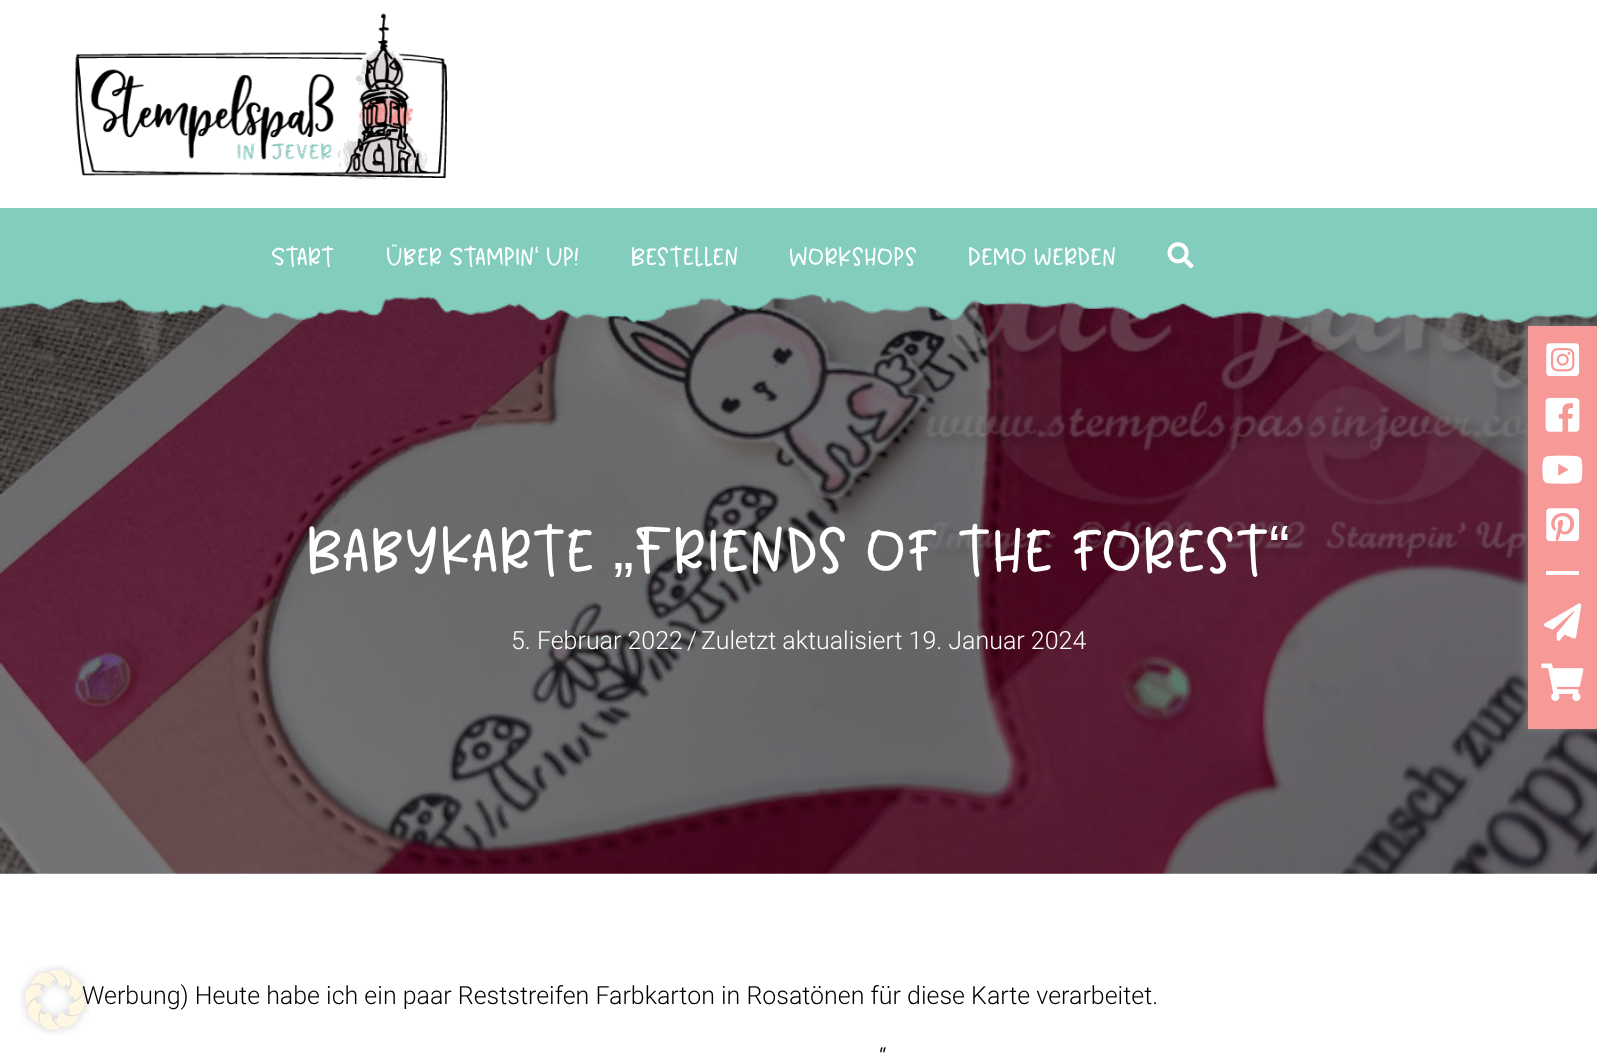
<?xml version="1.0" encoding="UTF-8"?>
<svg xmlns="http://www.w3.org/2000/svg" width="1597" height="1054">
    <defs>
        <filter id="blur1" x="-50%" y="-200%" width="200%" height="500%"><feGaussianBlur stdDeviation="5"/></filter>
    </defs>
    <rect width="100%" height="100%" fill="#FFFFFF"/>
    <text x="82" y="1004" font-family="Roboto" font-size="25" font-weight="300" fill="#000000">Werbung) Heute habe ich ein paar Reststreifen Farbkarton in Rosatönen für diese Karte verarbeitet.</text>
    <image x="20" y="965" width="70" height="70" href="img_01.png"/>
    <image x="75" y="13" width="373" height="167" href="img_02.png"/>
    <rect x="0" y="208" width="1597" height="85" fill="#82CDBE"/>
    <text x="271" y="264" font-family="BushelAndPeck" font-size="25" fill="#FFFFFF">Start</text>
    <text x="386" y="264" font-family="BushelAndPeck" font-size="25" fill="#FFFFFF">Über Stampin</text>
    <text x="534" y="264" font-family="Liberation Sans" font-size="25" fill="#FFFFFF">‘</text>
    <text x="546" y="264" font-family="BushelAndPeck" font-size="25" fill="#FFFFFF">Up!</text>
    <text x="631" y="264" font-family="BushelAndPeck" font-size="25" fill="#FFFFFF">Bestellen</text>
    <text x="789" y="264" font-family="BushelAndPeck" font-size="25" fill="#FFFFFF">Workshops</text>
    <text x="968" y="264" font-family="BushelAndPeck" font-size="25" fill="#FFFFFF">Demo werden</text>
    <image x="1167" y="242" width="27" height="27" href="img_03.png"/>
    <image x="0" y="293" width="1597" height="581" href="img_05.png"/>
    <image x="0" y="293" width="1597" height="30" href="img_04.png"/>
    <text x="307" y="569" font-family="BushelAndPeck" font-size="62.5" fill="#FFFFFF">Babykarte</text>
    <text x="634" y="569" font-family="BushelAndPeck" font-size="62.5" fill="#FFFFFF">Friends of the forest</text>
    <text x="1269" y="569" font-family="Liberation Sans" font-size="62.5" fill="#FFFFFF">“</text>
    <text x="613" y="569" font-family="Liberation Sans" font-size="62.5" fill="#FFFFFF">„</text>
    <text x="511" y="649" font-family="Roboto" font-size="25" font-weight="300" fill="#FFFFFF">5. Februar 2022</text>
    <text x="687" y="649" font-family="Roboto" font-size="25" font-weight="300" fill="#FFFFFF">/</text>
    <text x="701" y="649" font-family="Roboto" font-size="25" font-weight="300" fill="#FFFFFF">Zuletzt aktualisiert 19. Januar 2024</text>
    <text x="879" y="1066" font-family="Roboto" font-size="25" font-weight="300" fill="#000000">“</text>
    <rect x="1526" y="325" width="70" height="403" fill="#808080" filter="url(#blur1)"/>
    <rect x="1528" y="326" width="69" height="403" fill="#F69997"/>
    <image x="1546" y="343" width="34" height="34" href="img_06.png"/>
    <image x="1545" y="397" width="35" height="35" href="img_07.png"/>
    <image x="1542" y="455" width="41" height="29" href="img_08.png"/>
    <image x="1546" y="508" width="34" height="34" href="img_09.png"/>
    <rect x="1546" y="571" width="33" height="4" fill="#FFFFFF"/>
    <image x="1543" y="603" width="39" height="38" href="img_10.png"/>
    <image x="1541" y="663" width="43" height="38" href="img_11.png"/>
</svg>
